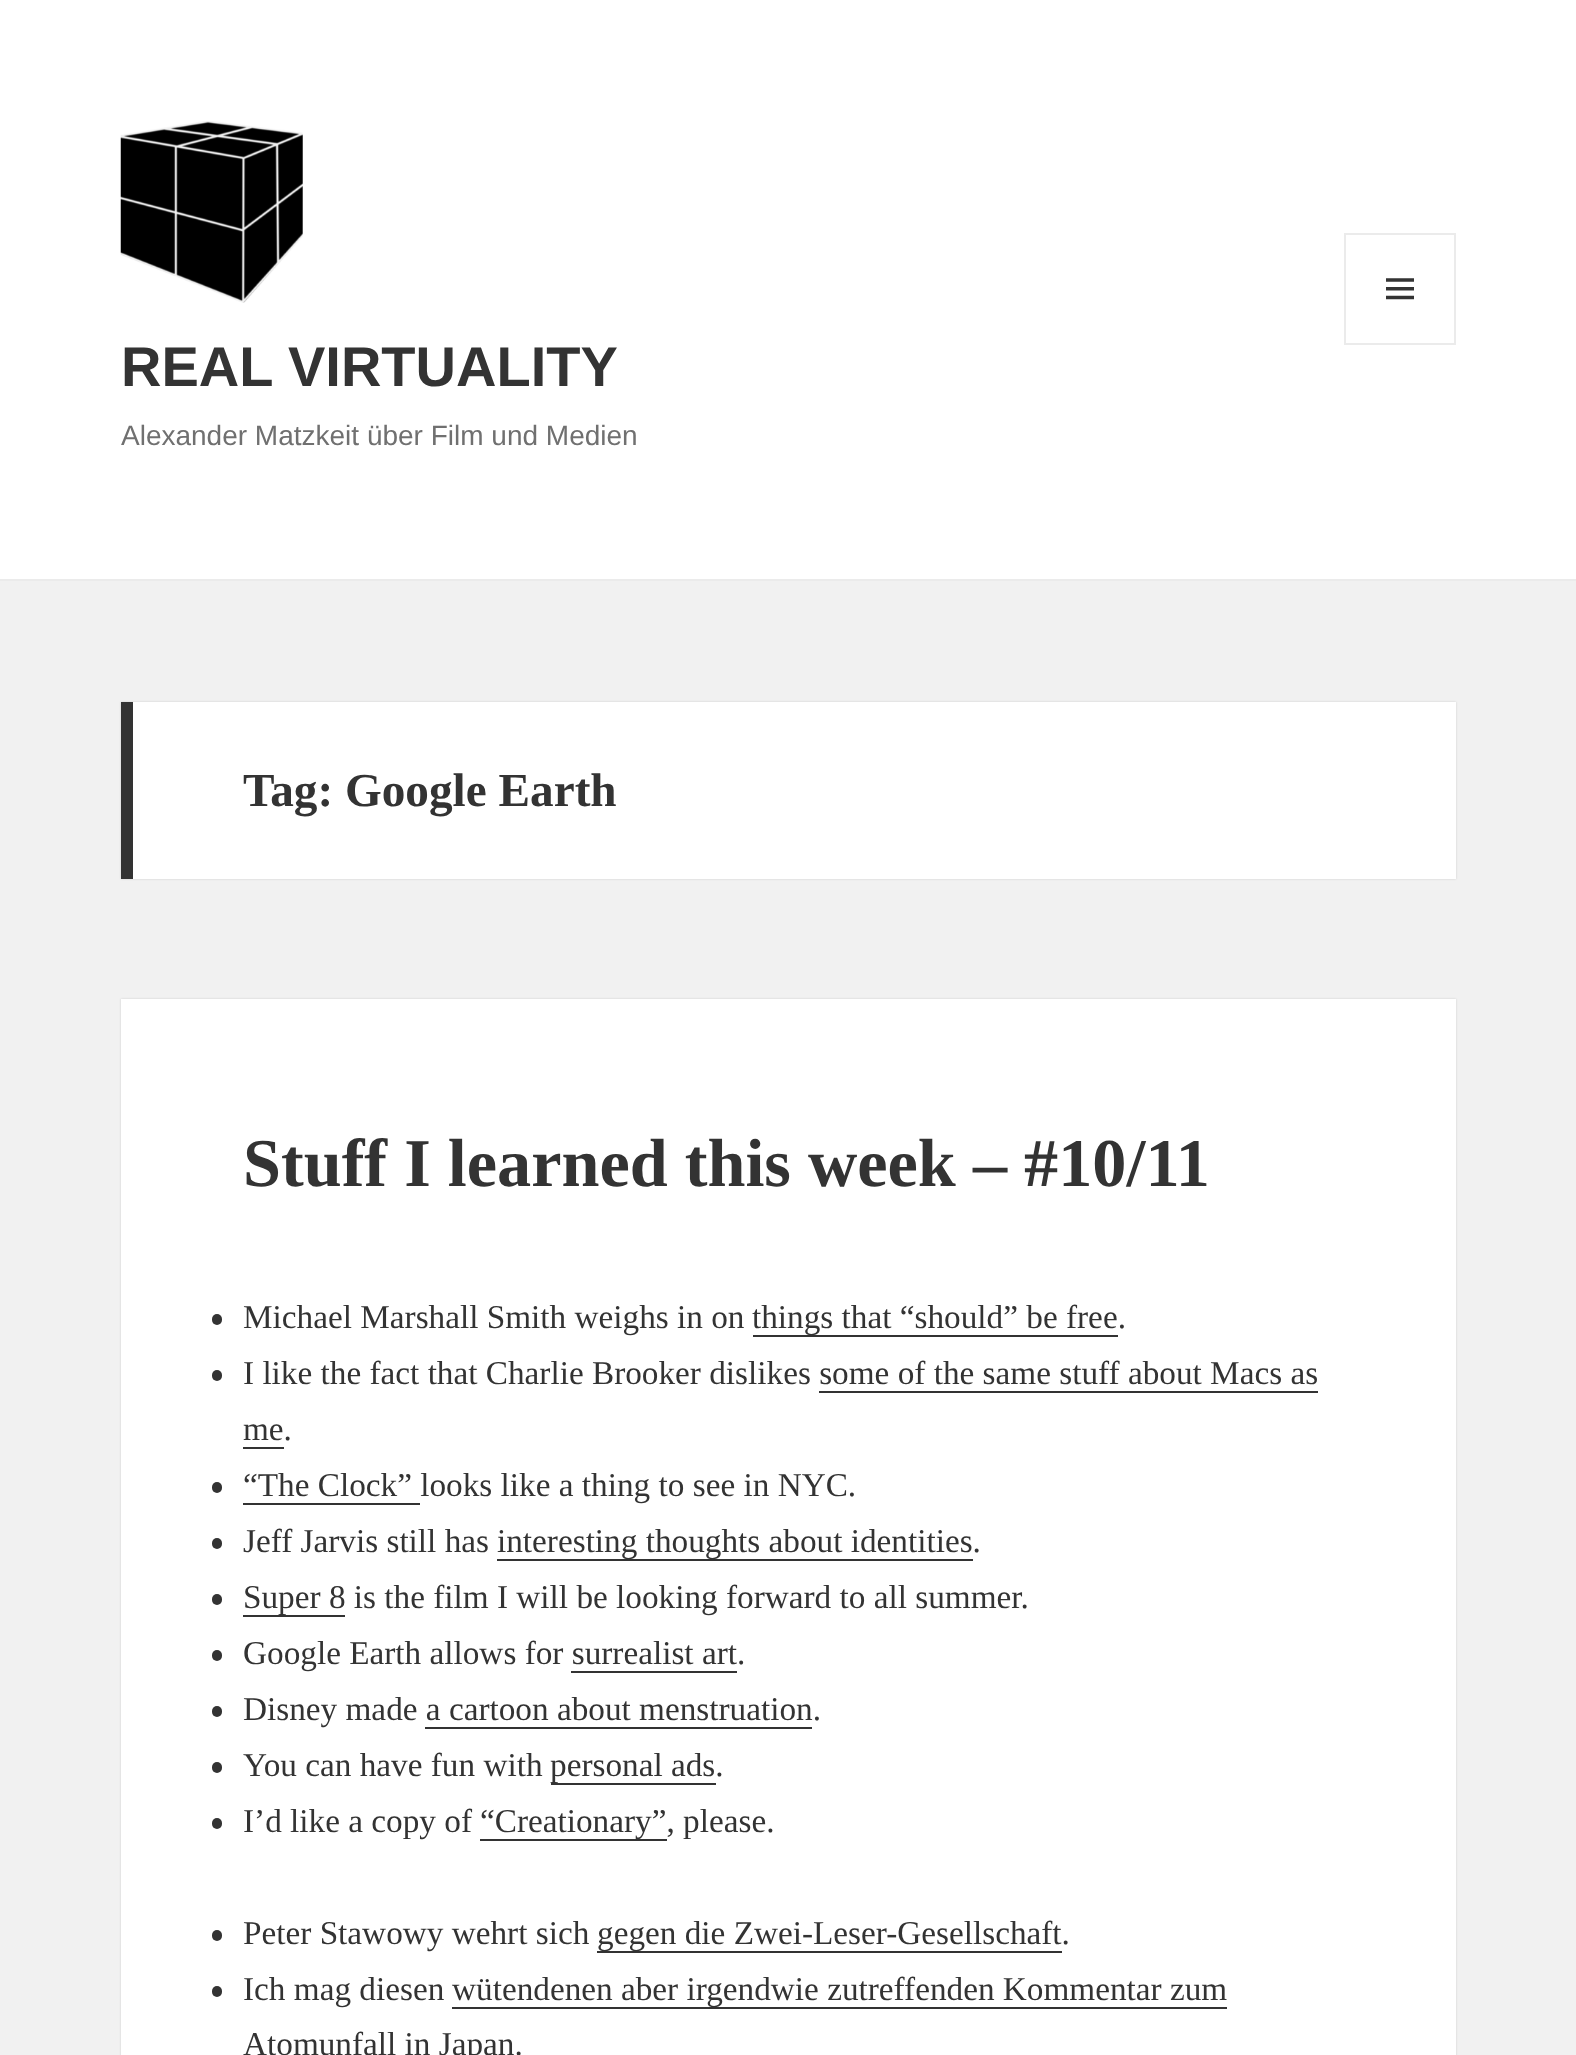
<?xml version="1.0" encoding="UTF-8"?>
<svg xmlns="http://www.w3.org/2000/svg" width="1576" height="2055">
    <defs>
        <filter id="blur1" x="-50%" y="-200%" width="200%" height="500%"><feGaussianBlur stdDeviation="1"/></filter>
    </defs>
    <rect width="100%" height="100%" fill="#F1F1F1"/>
    <rect x="0" y="0" width="1576" height="579" fill="#FFFFFF"/>
    <rect x="0" y="579" width="1576" height="2" fill="#EBEBEB"/>
    <image x="120" y="121" width="183" height="182" href="img_01.png"/>
    <rect x="1345" y="234" width="110" height="110" fill="none" stroke="#EBEBEB" stroke-width="2"/>
    <image x="1386" y="278" width="28" height="22" href="img_02.png"/>
    <text x="121" y="386" font-family="Liberation Sans" font-size="56" font-weight="700" fill="#333333">REAL VIRTUALITY</text>
    <text x="121" y="445" font-family="Liberation Sans" font-size="28" fill="#707070">Alexander Matzkeit über Film und Medien</text>
    <rect x="121" y="702" width="1335" height="177" fill="#000000" fill-opacity="0.15" filter="url(#blur1)"/>
    <rect x="133" y="702" width="1323" height="177" fill="#FFFFFF"/>
    <rect x="121" y="702" width="12" height="177" fill="#333333"/>
    <text x="243" y="806" font-family="Liberation Serif" font-size="47.25" font-weight="700" fill="#333333">Tag: Google Earth</text>
    <rect x="121" y="999" width="1335" height="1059" fill="#000000" fill-opacity="0.15" filter="url(#blur1)"/>
    <rect x="121" y="999" width="1335" height="1056" fill="#FFFFFF"/>
    <text x="243" y="1186" font-family="Liberation Serif" font-size="68.25" font-weight="700" fill="#333333">Stuff I learned this week – #10/11</text>
    <rect x="212" y="1314" width="10" height="11" rx="5" fill="#333333"/>
    <text x="243" y="1328" font-family="Liberation Serif" font-size="33.25" fill="#333333">Michael Marshall Smith weighs in on</text>
    <rect x="753" y="1335" width="365" height="2" fill="#333333"/>
    <text x="752" y="1328" font-family="Liberation Serif" font-size="33.25" fill="#333333">things that “should” be free.</text>
    <rect x="212" y="1370" width="10" height="11" rx="5" fill="#333333"/>
    <text font-family="Liberation Serif" font-size="33.25" fill="#333333">
        <tspan x="243" y="1384">I like the fact that Charlie Brooker dislikes some of the same stuff about Macs as</tspan>
        <tspan x="243" y="1440">me.</tspan>
    </text>
    <rect x="819" y="1391" width="499" height="2" fill="#333333"/>
    <rect x="243" y="1447" width="41" height="2" fill="#333333"/>
    <rect x="212" y="1482" width="10" height="11" rx="5" fill="#333333"/>
    <rect x="243" y="1503" width="177" height="2" fill="#333333"/>
    <text x="243" y="1496" font-family="Liberation Serif" font-size="33.25" fill="#333333">“The Clock” looks like a thing to see in NYC.</text>
    <rect x="212" y="1538" width="10" height="11" rx="5" fill="#333333"/>
    <text x="243" y="1552" font-family="Liberation Serif" font-size="33.25" fill="#333333">Jeff Jarvis still has</text>
    <rect x="497" y="1559" width="476" height="2" fill="#333333"/>
    <text x="497" y="1552" font-family="Liberation Serif" font-size="33.25" fill="#333333">interesting thoughts about identities.</text>
    <rect x="212" y="1594" width="10" height="11" rx="5" fill="#333333"/>
    <rect x="243" y="1615" width="102" height="2" fill="#333333"/>
    <text x="243" y="1608" font-family="Liberation Serif" font-size="33.25" fill="#333333">Super 8 is the film I will be looking forward to all summer.</text>
    <rect x="212" y="1650" width="10" height="11" rx="5" fill="#333333"/>
    <text x="243" y="1664" font-family="Liberation Serif" font-size="33.25" fill="#333333">Google Earth allows for surrealist art.</text>
    <rect x="571" y="1671" width="166" height="2" fill="#333333"/>
    <rect x="212" y="1706" width="10" height="11" rx="5" fill="#333333"/>
    <text x="243" y="1720" font-family="Liberation Serif" font-size="33.25" fill="#333333">Disney made a cartoon about menstruation.</text>
    <rect x="425" y="1727" width="387" height="2" fill="#333333"/>
    <rect x="212" y="1762" width="10" height="11" rx="5" fill="#333333"/>
    <text x="243" y="1776" font-family="Liberation Serif" font-size="33.25" fill="#333333">You can have fun with</text>
    <rect x="551" y="1783" width="165" height="2" fill="#333333"/>
    <text x="550" y="1776" font-family="Liberation Serif" font-size="33.25" fill="#333333">personal ads.</text>
    <rect x="212" y="1818" width="10" height="11" rx="5" fill="#333333"/>
    <text x="243" y="1832" font-family="Liberation Serif" font-size="33.25" fill="#333333">I’d like a copy of</text>
    <rect x="480" y="1839" width="187" height="2" fill="#333333"/>
    <text x="480" y="1832" font-family="Liberation Serif" font-size="33.25" fill="#333333">“Creationary”, please.</text>
    <rect x="212" y="1930" width="10" height="11" rx="5" fill="#333333"/>
    <text x="243" y="1944" font-family="Liberation Serif" font-size="33.25" fill="#333333">Peter Stawowy wehrt sich</text>
    <rect x="597" y="1951" width="465" height="2" fill="#333333"/>
    <text x="597" y="1944" font-family="Liberation Serif" font-size="33.25" fill="#333333">gegen die Zwei-Leser-Gesellschaft.</text>
    <rect x="212" y="1986" width="10" height="11" rx="5" fill="#333333"/>
    <text x="243" y="2000" font-family="Liberation Serif" font-size="33.25" fill="#333333">Ich mag diesen</text>
    <rect x="452" y="2007" width="775" height="2" fill="#333333"/>
    <text x="452" y="2000" font-family="Liberation Serif" font-size="33.25" fill="#333333">wütendenen aber irgendwie zutreffenden Kommentar zum</text>
    <text x="243" y="2055" font-family="Liberation Serif" font-size="33.25" fill="#333333">Atomunfall in Japan.</text>
</svg>
